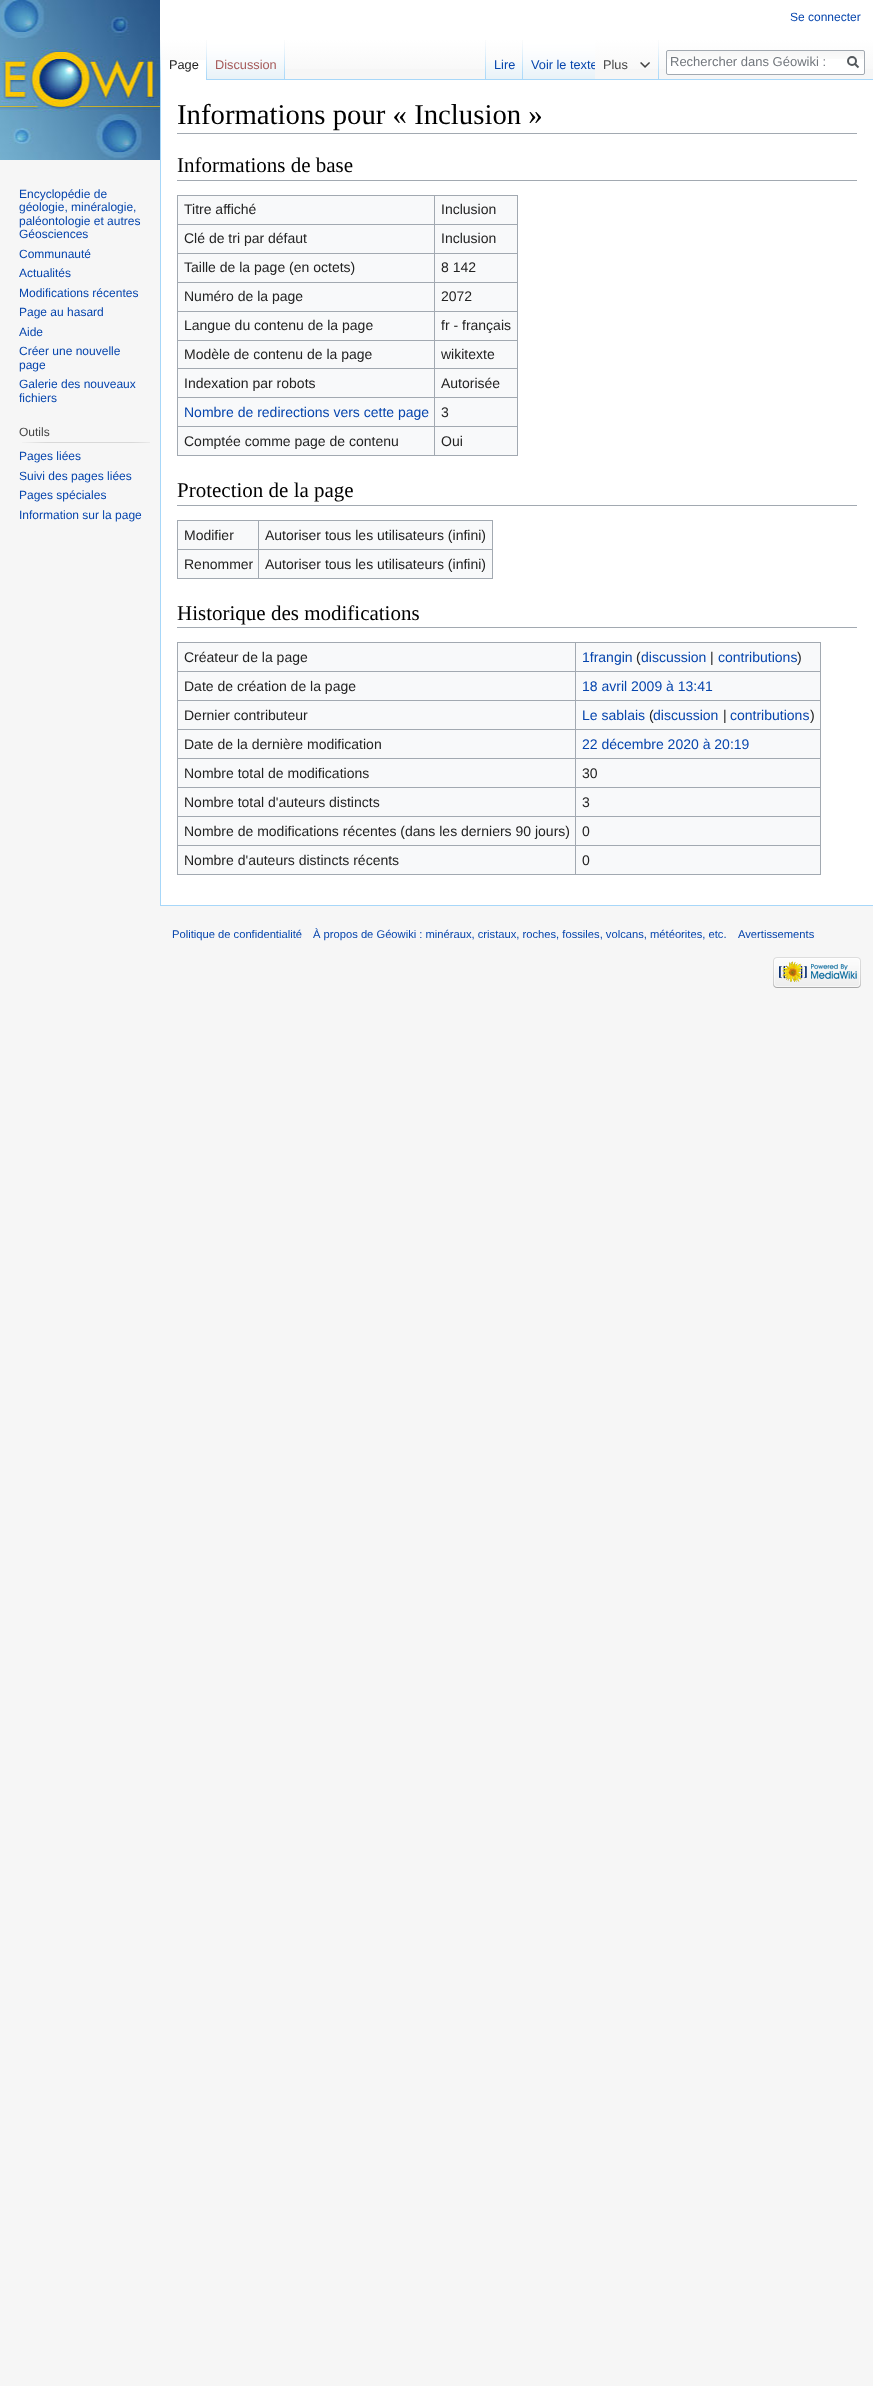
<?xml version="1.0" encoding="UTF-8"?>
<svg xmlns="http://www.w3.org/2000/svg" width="873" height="2386">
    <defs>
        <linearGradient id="g1" gradientUnits="userSpaceOnUse" x1="437" y1="0" x2="437" y2="80"><stop offset="0.5" stop-color="#FFFFFF"/><stop offset="1" stop-color="#F6F6F6"/></linearGradient>
        <clipPath id="clip1"><rect x="523" y="40" width="72" height="40"/></clipPath>
    </defs>
    <rect width="100%" height="100%" fill="#F6F6F6"/>
    <rect x="160" y="0" width="713" height="69" fill="url(#g1)"/>
    <text x="790" y="21" font-family="Liberation Sans" font-size="12" fill="#0645AD">Se connecter</text>
    <image x="160" y="40" width="1" height="39" href="img_01.png"/>
    <rect x="161" y="60" width="45" height="20" fill="#FFFFFF"/>
    <image x="206" y="40" width="1" height="40" href="img_02.png"/>
    <text x="169" y="69" font-family="Liberation Sans" font-size="12.75" fill="#222222">Page</text>
    <image x="207" y="40" width="77" height="39" href="img_03.png"/>
    <image x="284" y="40" width="1" height="39" href="img_01.png"/>
    <text x="215" y="69" font-family="Liberation Sans" font-size="12.75" fill="#A55858">Discussion</text>
    <image x="485" y="40" width="1" height="39" href="img_01.png"/>
    <image x="486" y="62" width="36" height="17" href="img_04.png"/>
    <image x="522" y="40" width="1" height="39" href="img_01.png"/>
    <text x="494" y="69" font-family="Liberation Sans" font-size="12.75" fill="#0645AD">Lire</text>
    <image x="523" y="40" width="72" height="39" href="img_05.png"/>
    <g clip-path="url(#clip1)">
        <text x="531" y="69" font-family="Liberation Sans" font-size="12.75" fill="#0645AD">Voir le texte</text>
    </g>
    <image x="658" y="40" width="1" height="39" href="img_01.png"/>
    <text x="603" y="69" font-family="Liberation Sans" font-size="12.75" fill="#444444">Plus</text>
    <image x="640" y="62" width="10" height="6" href="img_06.png"/>
    <rect x="666" y="50" width="199" height="25" rx="2" fill="#FFFFFF"/>
    <image x="666" y="51" width="199" height="8" href="img_07.png"/>
    <rect x="666.5" y="50.5" width="198" height="24" rx="1.5" fill="none" stroke="#A2A9B1"/>
    <text x="670" y="66" font-family="Liberation Sans" font-size="13" fill="#72777D">Rechercher dans Géowiki :</text>
    <path d="M 858.5 67.5 L 854.5 63.5" fill="none" stroke="#54595D" stroke-width="2"/>
    <circle cx="852" cy="61" r="4" fill="none" stroke="#54595D" stroke-width="2"/>
    <image x="0" y="0" width="160" height="160" href="img_08.png"/>
    <text font-family="Liberation Sans" font-size="12" fill="#0645AD">
        <tspan x="19" y="198">Encyclopédie de</tspan>
        <tspan x="19" y="211">géologie, minéralogie,</tspan>
        <tspan x="19" y="225">paléontologie et autres</tspan>
        <tspan x="19" y="238">Géosciences</tspan>
        <tspan x="19" y="258">Communauté</tspan>
        <tspan x="19" y="277">Actualités</tspan>
        <tspan x="19" y="297">Modifications récentes</tspan>
        <tspan x="19" y="316">Page au hasard</tspan>
        <tspan x="19" y="336">Aide</tspan>
        <tspan x="19" y="355">Créer une nouvelle</tspan>
        <tspan x="19" y="369">page</tspan>
        <tspan x="19" y="388">Galerie des nouveaux</tspan>
        <tspan x="19" y="402">fichiers</tspan>
    </text>
    <text x="19" y="436" font-family="Liberation Sans" font-size="12" fill="#444444">Outils</text>
    <image x="22" y="442" width="128" height="1" href="img_09.png"/>
    <text font-family="Liberation Sans" font-size="12" fill="#0645AD">
        <tspan x="19" y="460">Pages liées</tspan>
        <tspan x="19" y="480">Suivi des pages liées</tspan>
        <tspan x="19" y="499">Pages spéciales</tspan>
        <tspan x="19" y="519">Information sur la page</tspan>
    </text>
    <rect x="161" y="80" width="712" height="825" fill="#FFFFFF"/>
    <rect x="207" y="79" width="666" height="1" fill="#A7D7F9"/>
    <rect x="160" y="905" width="713" height="1" fill="#A7D7F9"/>
    <rect x="160" y="79" width="1" height="827" fill="#A7D7F9"/>
    <rect x="177" y="133" width="680" height="1" fill="#A2A9B1"/>
    <text x="177" y="124" font-family="Liberation Serif" font-size="28.75" fill="#000000">Informations pour « Inclusion »</text>
    <rect x="177" y="180" width="680" height="1" fill="#A2A9B1"/>
    <text x="177" y="172" font-family="Liberation Serif" font-size="21" fill="#000000">Informations de base</text>
    <rect x="178" y="196" width="339" height="259" fill="#F8F9FA"/>
    <rect x="177" y="195" width="341" height="1" fill="#A2A9B1"/>
    <rect x="517" y="195" width="1" height="261" fill="#A2A9B1"/>
    <rect x="177" y="455" width="341" height="1" fill="#A2A9B1"/>
    <rect x="177" y="195" width="1" height="261" fill="#A2A9B1"/>
    <text x="184" y="214" font-family="Liberation Sans" font-size="14" fill="#222222">Titre affiché</text>
    <rect x="434" y="224" width="84" height="1" fill="#A2A9B1"/>
    <rect x="434" y="253" width="84" height="1" fill="#A2A9B1"/>
    <rect x="434" y="282" width="84" height="1" fill="#A2A9B1"/>
    <rect x="434" y="311" width="84" height="1" fill="#A2A9B1"/>
    <rect x="434" y="340" width="84" height="1" fill="#A2A9B1"/>
    <rect x="434" y="368" width="84" height="1" fill="#A2A9B1"/>
    <rect x="434" y="397" width="84" height="1" fill="#A2A9B1"/>
    <rect x="434" y="426" width="84" height="1" fill="#A2A9B1"/>
    <rect x="434" y="426" width="1" height="30" fill="#A2A9B1"/>
    <rect x="177" y="426" width="258" height="1" fill="#A2A9B1"/>
    <rect x="434" y="397" width="1" height="30" fill="#A2A9B1"/>
    <rect x="177" y="397" width="258" height="1" fill="#A2A9B1"/>
    <rect x="434" y="368" width="1" height="30" fill="#A2A9B1"/>
    <rect x="177" y="368" width="258" height="1" fill="#A2A9B1"/>
    <rect x="434" y="340" width="1" height="29" fill="#A2A9B1"/>
    <rect x="177" y="340" width="258" height="1" fill="#A2A9B1"/>
    <rect x="434" y="311" width="1" height="30" fill="#A2A9B1"/>
    <rect x="177" y="311" width="258" height="1" fill="#A2A9B1"/>
    <rect x="434" y="282" width="1" height="30" fill="#A2A9B1"/>
    <rect x="177" y="282" width="258" height="1" fill="#A2A9B1"/>
    <rect x="434" y="253" width="1" height="30" fill="#A2A9B1"/>
    <rect x="177" y="253" width="258" height="1" fill="#A2A9B1"/>
    <rect x="434" y="224" width="1" height="30" fill="#A2A9B1"/>
    <rect x="177" y="224" width="258" height="1" fill="#A2A9B1"/>
    <rect x="434" y="195" width="1" height="30" fill="#A2A9B1"/>
    <text x="441" y="214" font-family="Liberation Sans" font-size="14" fill="#222222">Inclusion</text>
    <text x="184" y="243" font-family="Liberation Sans" font-size="14" fill="#222222">Clé de tri par défaut</text>
    <text x="441" y="243" font-family="Liberation Sans" font-size="14" fill="#222222">Inclusion</text>
    <text x="184" y="272" font-family="Liberation Sans" font-size="14" fill="#222222">Taille de la page (en octets)</text>
    <text x="441" y="272" font-family="Liberation Sans" font-size="14" fill="#222222">8 142</text>
    <text x="184" y="301" font-family="Liberation Sans" font-size="14" fill="#222222">Numéro de la page</text>
    <text x="441" y="301" font-family="Liberation Sans" font-size="14" fill="#222222">2072</text>
    <text x="184" y="330" font-family="Liberation Sans" font-size="14" fill="#222222">Langue du contenu de la page</text>
    <text x="441" y="330" font-family="Liberation Sans" font-size="14" fill="#222222">fr - français</text>
    <text x="184" y="359" font-family="Liberation Sans" font-size="14" fill="#222222">Modèle de contenu de la page</text>
    <text x="441" y="359" font-family="Liberation Sans" font-size="14" fill="#222222">wikitexte</text>
    <text x="184" y="388" font-family="Liberation Sans" font-size="14" fill="#222222">Indexation par robots</text>
    <text x="441" y="388" font-family="Liberation Sans" font-size="14" fill="#222222">Autorisée</text>
    <text x="184" y="417" font-family="Liberation Sans" font-size="14" fill="#0645AD">Nombre de redirections vers cette page</text>
    <text x="441" y="417" font-family="Liberation Sans" font-size="14" fill="#222222">3</text>
    <text x="184" y="446" font-family="Liberation Sans" font-size="14" fill="#222222">Comptée comme page de contenu</text>
    <text x="441" y="446" font-family="Liberation Sans" font-size="14" fill="#222222">Oui</text>
    <rect x="177" y="505" width="680" height="1" fill="#A2A9B1"/>
    <text x="177" y="497" font-family="Liberation Serif" font-size="21" fill="#000000">Protection de la page</text>
    <rect x="178" y="521" width="314" height="57" fill="#F8F9FA"/>
    <rect x="177" y="520" width="316" height="1" fill="#A2A9B1"/>
    <rect x="492" y="520" width="1" height="59" fill="#A2A9B1"/>
    <rect x="177" y="578" width="316" height="1" fill="#A2A9B1"/>
    <rect x="177" y="520" width="1" height="59" fill="#A2A9B1"/>
    <text x="184" y="540" font-family="Liberation Sans" font-size="14" fill="#222222">Modifier</text>
    <rect x="258" y="549" width="235" height="1" fill="#A2A9B1"/>
    <rect x="258" y="549" width="1" height="30" fill="#A2A9B1"/>
    <rect x="177" y="549" width="82" height="1" fill="#A2A9B1"/>
    <rect x="258" y="520" width="1" height="30" fill="#A2A9B1"/>
    <text x="265" y="540" font-family="Liberation Sans" font-size="14" fill="#222222">Autoriser tous les utilisateurs (infini)</text>
    <text x="184" y="569" font-family="Liberation Sans" font-size="14" fill="#222222">Renommer</text>
    <text x="265" y="569" font-family="Liberation Sans" font-size="14" fill="#222222">Autoriser tous les utilisateurs (infini)</text>
    <rect x="177" y="627" width="680" height="1" fill="#A2A9B1"/>
    <text x="177" y="620" font-family="Liberation Serif" font-size="21" fill="#000000">Historique des modifications</text>
    <rect x="178" y="643" width="642" height="231" fill="#F8F9FA"/>
    <rect x="177" y="642" width="644" height="1" fill="#A2A9B1"/>
    <rect x="820" y="642" width="1" height="233" fill="#A2A9B1"/>
    <rect x="177" y="874" width="644" height="1" fill="#A2A9B1"/>
    <rect x="177" y="642" width="1" height="233" fill="#A2A9B1"/>
    <text x="184" y="662" font-family="Liberation Sans" font-size="14" fill="#222222">Créateur de la page</text>
    <rect x="575" y="671" width="246" height="1" fill="#A2A9B1"/>
    <rect x="575" y="700" width="246" height="1" fill="#A2A9B1"/>
    <rect x="575" y="729" width="246" height="1" fill="#A2A9B1"/>
    <rect x="575" y="758" width="246" height="1" fill="#A2A9B1"/>
    <rect x="575" y="787" width="246" height="1" fill="#A2A9B1"/>
    <rect x="575" y="816" width="246" height="1" fill="#A2A9B1"/>
    <rect x="575" y="845" width="246" height="1" fill="#A2A9B1"/>
    <rect x="575" y="845" width="1" height="30" fill="#A2A9B1"/>
    <rect x="177" y="845" width="399" height="1" fill="#A2A9B1"/>
    <rect x="575" y="816" width="1" height="30" fill="#A2A9B1"/>
    <rect x="177" y="816" width="399" height="1" fill="#A2A9B1"/>
    <rect x="575" y="787" width="1" height="30" fill="#A2A9B1"/>
    <rect x="177" y="787" width="399" height="1" fill="#A2A9B1"/>
    <rect x="575" y="758" width="1" height="30" fill="#A2A9B1"/>
    <rect x="177" y="758" width="399" height="1" fill="#A2A9B1"/>
    <rect x="575" y="729" width="1" height="30" fill="#A2A9B1"/>
    <rect x="177" y="729" width="399" height="1" fill="#A2A9B1"/>
    <rect x="575" y="700" width="1" height="30" fill="#A2A9B1"/>
    <rect x="177" y="700" width="399" height="1" fill="#A2A9B1"/>
    <rect x="575" y="671" width="1" height="30" fill="#A2A9B1"/>
    <rect x="177" y="671" width="399" height="1" fill="#A2A9B1"/>
    <rect x="575" y="642" width="1" height="30" fill="#A2A9B1"/>
    <text x="582" y="662" font-family="Liberation Sans" font-size="14" fill="#0645AD">1frangin</text>
    <text x="636" y="662" font-family="Liberation Sans" font-size="14" fill="#222222">(</text>
    <text x="641" y="662" font-family="Liberation Sans" font-size="14" fill="#0645AD">discussion</text>
    <text x="710" y="662" font-family="Liberation Sans" font-size="14" fill="#222222">|</text>
    <text x="718" y="662" font-family="Liberation Sans" font-size="14" fill="#0645AD">contributions</text>
    <text x="797" y="662" font-family="Liberation Sans" font-size="14" fill="#222222">)</text>
    <text x="184" y="691" font-family="Liberation Sans" font-size="14" fill="#222222">Date de création de la page</text>
    <text x="582" y="691" font-family="Liberation Sans" font-size="14" fill="#0645AD">18 avril 2009 à 13:41</text>
    <text x="184" y="720" font-family="Liberation Sans" font-size="14" fill="#222222">Dernier contributeur</text>
    <text x="582" y="720" font-family="Liberation Sans" font-size="14" fill="#0645AD">Le sablais</text>
    <text x="649" y="720" font-family="Liberation Sans" font-size="14" fill="#222222">(</text>
    <text x="653" y="720" font-family="Liberation Sans" font-size="14" fill="#0645AD">discussion</text>
    <text x="723" y="720" font-family="Liberation Sans" font-size="14" fill="#222222">|</text>
    <text x="730" y="720" font-family="Liberation Sans" font-size="14" fill="#0645AD">contributions</text>
    <text x="810" y="720" font-family="Liberation Sans" font-size="14" fill="#222222">)</text>
    <text x="184" y="749" font-family="Liberation Sans" font-size="14" fill="#222222">Date de la dernière modification</text>
    <text x="582" y="749" font-family="Liberation Sans" font-size="14" fill="#0645AD">22 décembre 2020 à 20:19</text>
    <text x="184" y="778" font-family="Liberation Sans" font-size="14" fill="#222222">Nombre total de modifications</text>
    <text x="582" y="778" font-family="Liberation Sans" font-size="14" fill="#222222">30</text>
    <text x="184" y="807" font-family="Liberation Sans" font-size="14" fill="#222222">Nombre total d'auteurs distincts</text>
    <text x="582" y="807" font-family="Liberation Sans" font-size="14" fill="#222222">3</text>
    <text x="184" y="836" font-family="Liberation Sans" font-size="14" fill="#222222">Nombre de modifications récentes (dans les derniers 90 jours)</text>
    <text x="582" y="836" font-family="Liberation Sans" font-size="14" fill="#222222">0</text>
    <text x="184" y="865" font-family="Liberation Sans" font-size="14" fill="#222222">Nombre d'auteurs distincts récents</text>
    <text x="582" y="865" font-family="Liberation Sans" font-size="14" fill="#222222">0</text>
    <text x="172" y="938" font-family="Liberation Sans" font-size="11.2" fill="#0645AD">Politique de confidentialité</text>
    <text x="313" y="938" font-family="Liberation Sans" font-size="11.2" fill="#0645AD">À propos de Géowiki : minéraux, cristaux, roches, fossiles, volcans, météorites, etc.</text>
    <text x="738" y="938" font-family="Liberation Sans" font-size="11.2" fill="#0645AD">Avertissements</text>
    <image x="773" y="957" width="88" height="31" href="img_10.png"/>
</svg>
